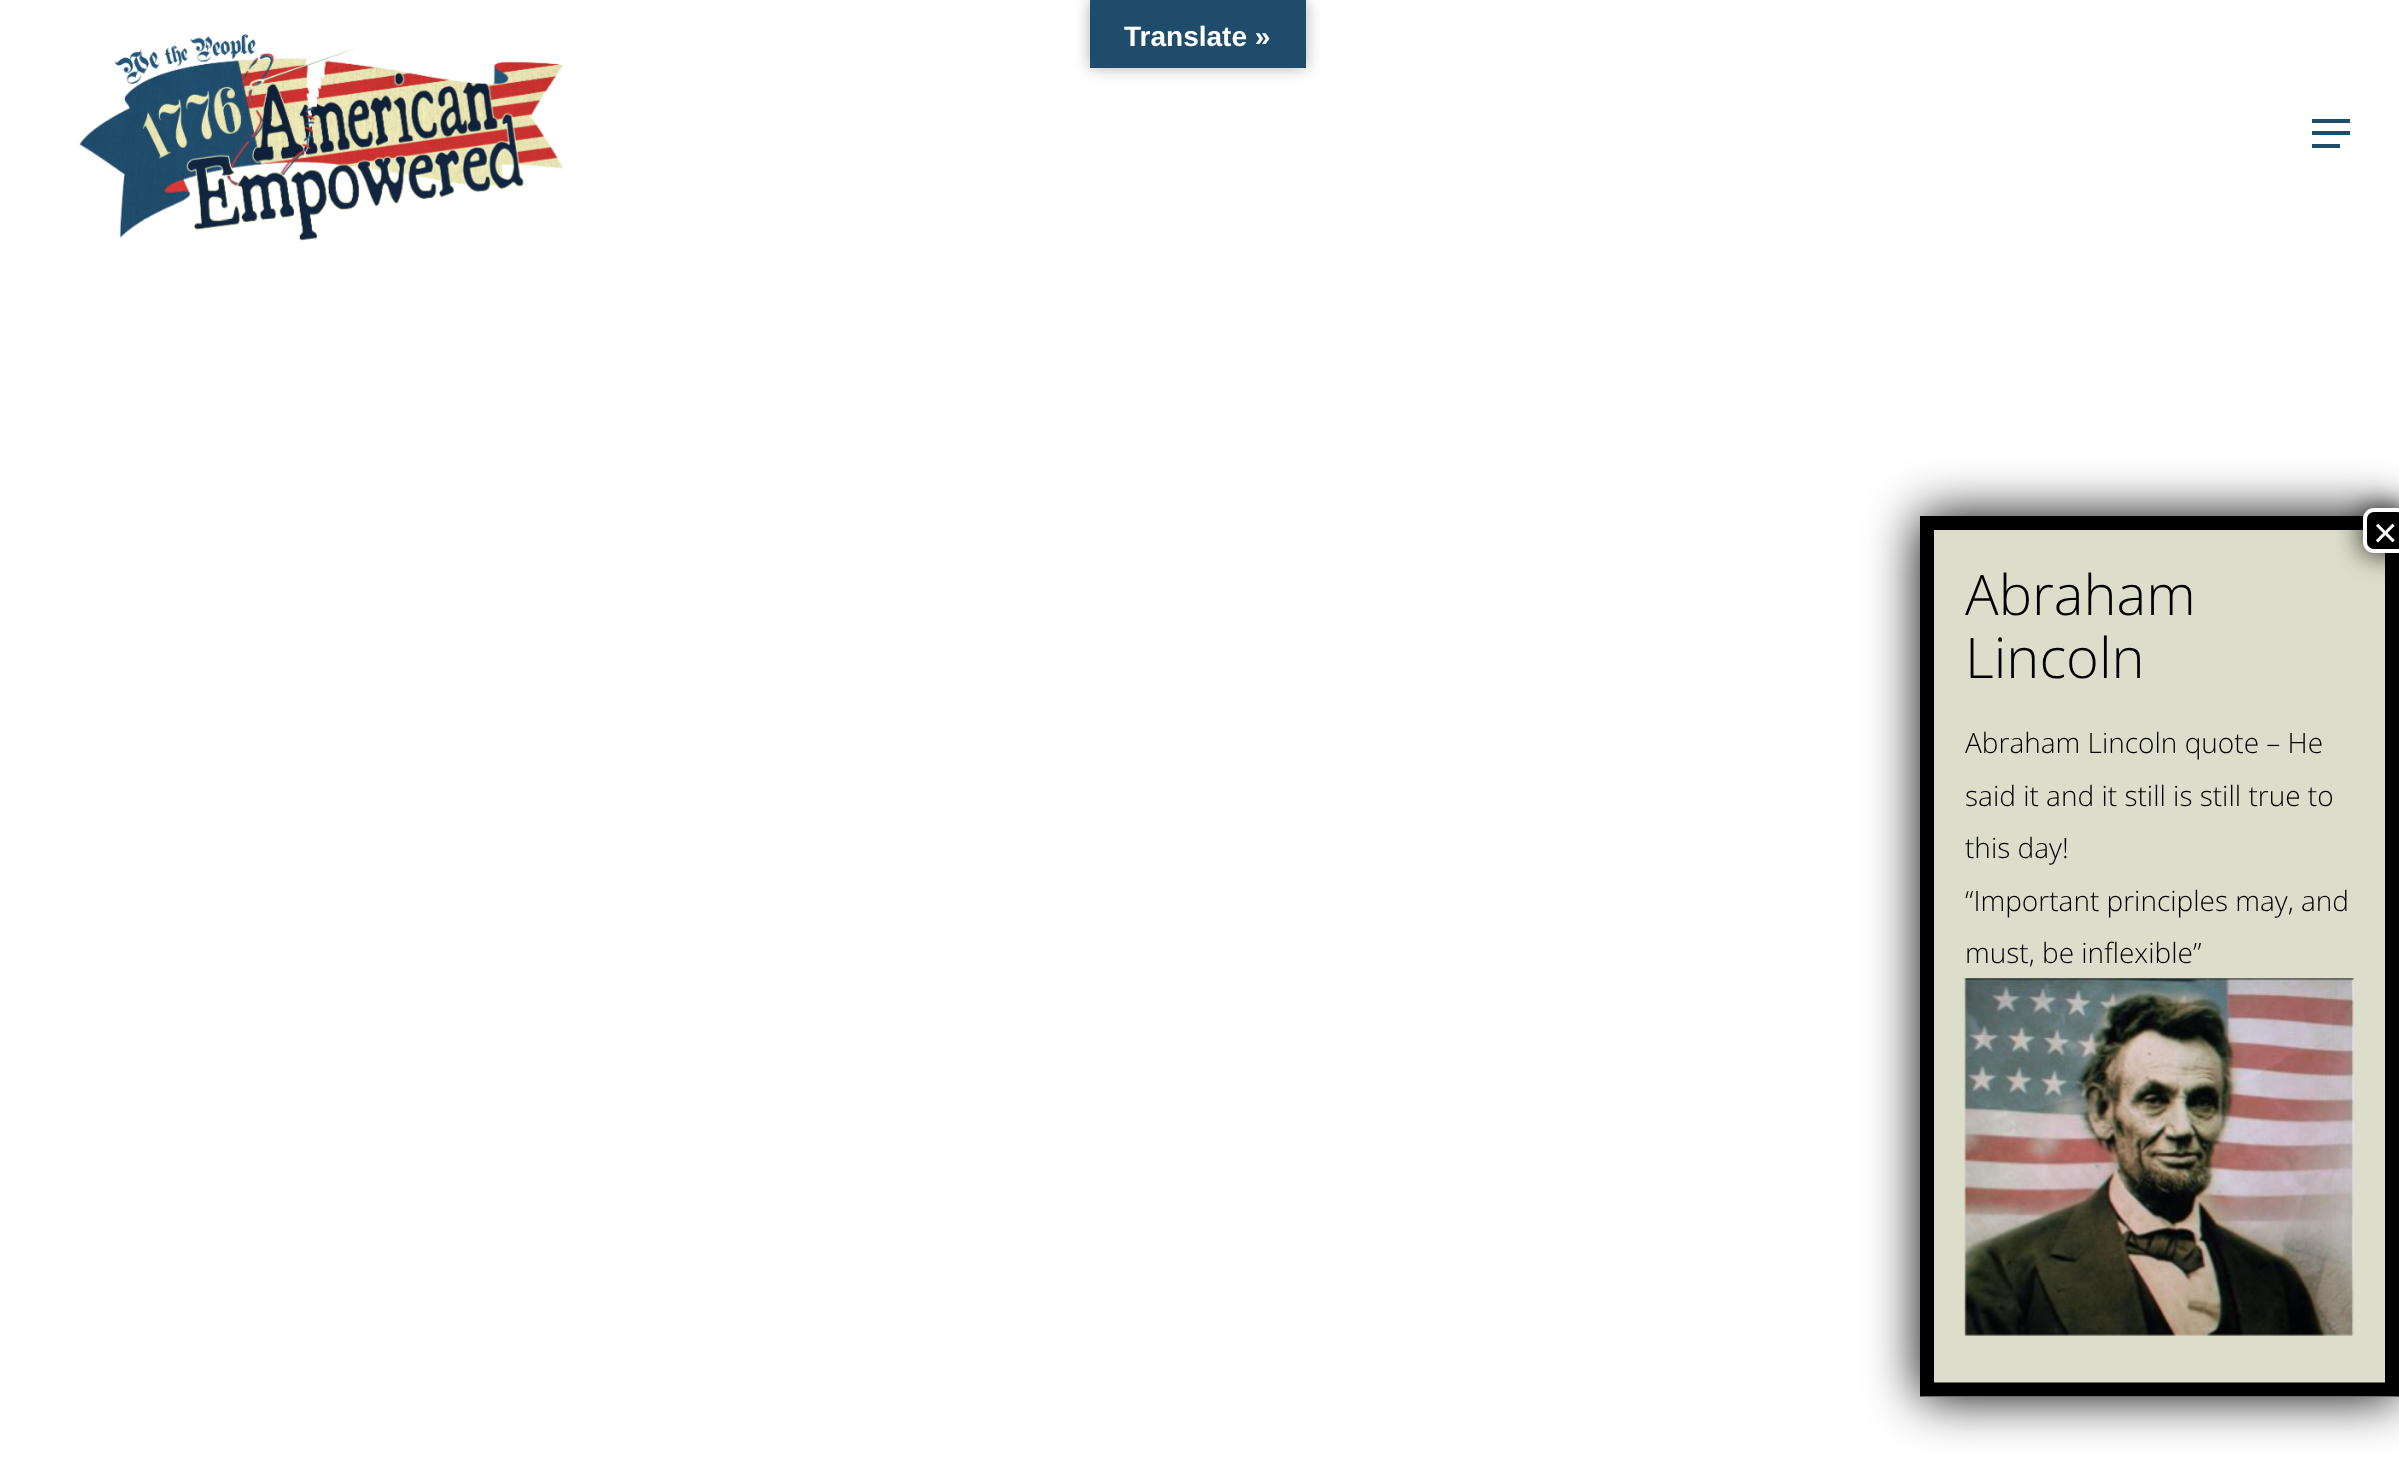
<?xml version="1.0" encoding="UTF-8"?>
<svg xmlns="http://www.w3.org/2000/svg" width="2399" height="1480">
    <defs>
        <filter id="blur1" x="-50%" y="-200%" width="200%" height="500%"><feGaussianBlur stdDeviation="8"/></filter>
        <filter id="blur2" x="-50%" y="-200%" width="200%" height="500%"><feGaussianBlur stdDeviation="26"/></filter>
        <filter id="blur3" x="-50%" y="-200%" width="200%" height="500%"><feGaussianBlur stdDeviation="13"/></filter>
    </defs>
    <rect width="100%" height="100%" fill="#FFFFFF"/>
    <rect x="1090" y="0" width="216" height="68" fill="#000000" fill-opacity="0.3" filter="url(#blur1)"/>
    <rect x="1090" y="0" width="216" height="68" fill="#1F4C6A"/>
    <text x="1124" y="46" font-family="Liberation Sans" font-size="28" font-weight="700" fill="#FFFFFF">Translate »</text>
    <image x="79" y="34" width="484" height="208" href="img_01.png"/>
    <rect x="2312" y="119" width="38" height="4" fill="#1F4C6A"/>
    <rect x="2312" y="144" width="28" height="4" fill="#1F4C6A"/>
    <rect x="2312" y="131" width="38" height="4" fill="#1F4C6A"/>
    <rect x="1920" y="516" width="479" height="881" rx="5" fill="#020202" filter="url(#blur2)"/>
    <rect x="1920" y="516" width="479" height="881" rx="5" fill="#DDDDCC"/>
    <path d="M 1927 523 H 2392 V 1389.5 H 1927 Z" fill="none" stroke="#000000" stroke-width="14"/>
    <rect x="2361" y="506" width="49" height="49" rx="12" fill="#020202" fill-opacity="0.75" filter="url(#blur3)"/>
    <rect x="2365" y="510" width="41" height="41" rx="9" fill="#000000" stroke="#FFFFFF" stroke-width="4"/>
    <text x="2373" y="547" font-family="Liberation Sans" font-size="42" fill="#FFFFFF">×</text>
    <text font-family="Open Sans" font-size="56" font-weight="300" fill="#000000">
        <tspan x="1965" y="615">Abraham</tspan>
        <tspan x="1965" y="678">Lincoln</tspan>
    </text>
    <text font-family="Open Sans" font-size="28" font-weight="300" fill="#000000">
        <tspan x="1965" y="753">Abraham Lincoln quote – He</tspan>
        <tspan x="1965" y="806">said it and it still is still true to</tspan>
        <tspan x="1965" y="858">this day!</tspan>
        <tspan x="1965" y="911">“Important principles may, and</tspan>
        <tspan x="1965" y="963">must, be inflexible”</tspan>
    </text>
    <image x="1964" y="978" width="390" height="358" href="img_02.png"/>
</svg>
